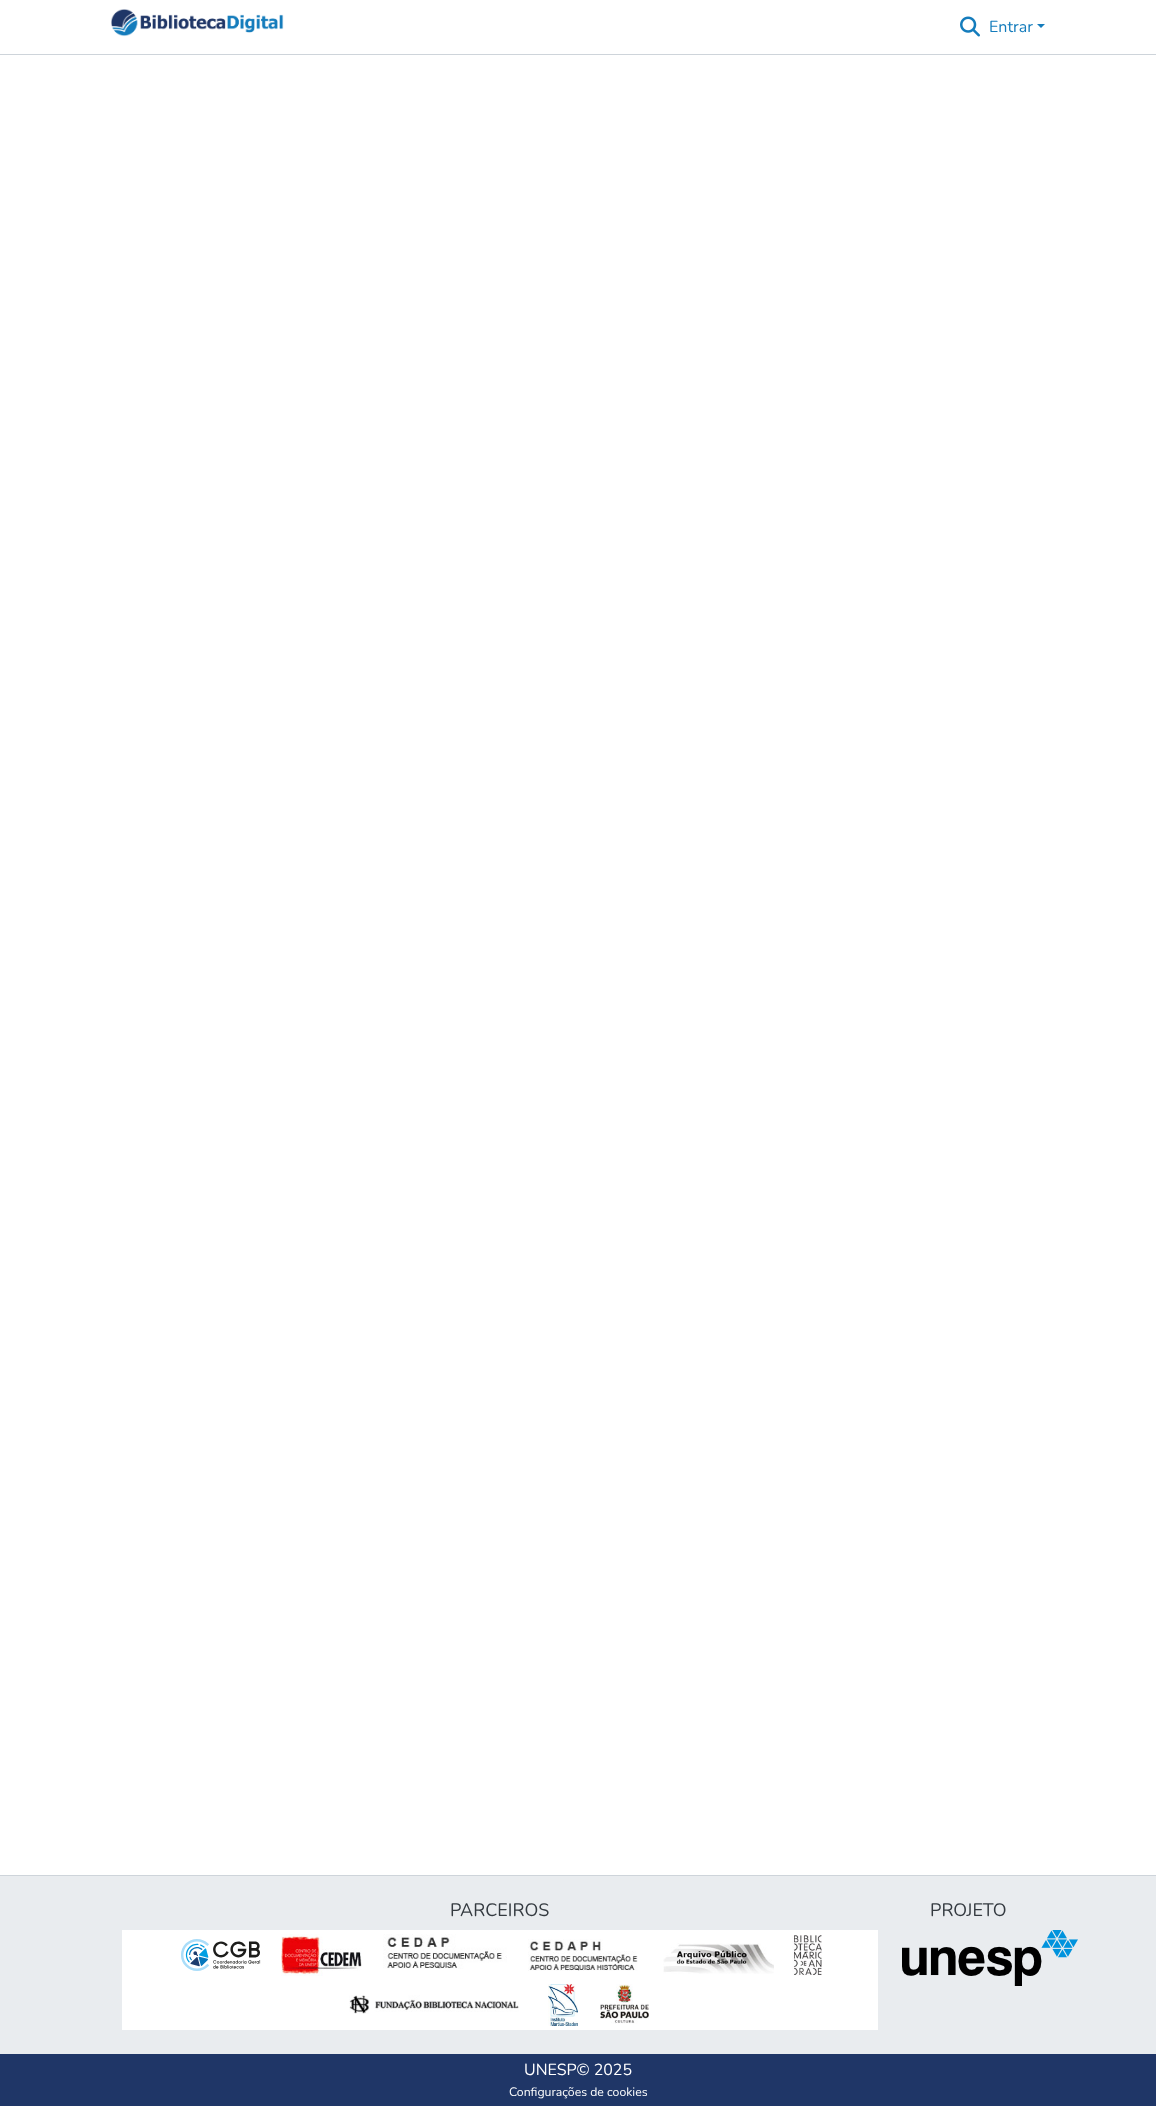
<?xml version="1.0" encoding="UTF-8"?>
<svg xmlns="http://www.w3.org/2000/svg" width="1156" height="2106">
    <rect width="100%" height="100%" fill="#FFFFFF"/>
    <rect x="0" y="54" width="1156" height="1" fill="#CED4DA"/>
    <image x="111" y="9" width="173" height="28" href="img_01.png"/>
    <image x="960" y="16" width="20" height="21" href="img_02.png"/>
    <text x="989" y="32" font-family="Nunito" font-size="16" fill="#147CBC">Entrar</text>
    <path d="M 1037 24 H 1045 L 1041 28 Z" fill="#147CBC"/>
    <rect x="0" y="1875" width="1156" height="1" fill="#CED4DA"/>
    <rect x="0" y="1876" width="1156" height="178" fill="#E9ECEF"/>
    <text x="450" y="1916" font-family="Nunito" font-size="18" fill="#343A40">PARCEIROS</text>
    <rect x="122" y="1930" width="756" height="100" fill="#FFFFFF"/>
    <image x="181" y="1939" width="80" height="32" href="img_03.png"/>
    <image x="281" y="1934" width="81" height="42" href="img_04.png"/>
    <image x="383" y="1934" width="124" height="35" href="img_05.png"/>
    <image x="528" y="1939" width="110" height="32" href="img_06.png"/>
    <image x="663" y="1943" width="111" height="31" href="img_07.png"/>
    <image x="792" y="1935" width="30" height="41" href="img_08.png"/>
    <image x="349" y="1995" width="170" height="19" href="img_09.png"/>
    <image x="548" y="1984" width="30" height="42" href="img_10.png"/>
    <image x="600" y="1984" width="49" height="40" href="img_11.png"/>
    <text x="930" y="1916" font-family="Nunito" font-size="18" fill="#343A40">PROJETO</text>
    <image x="902" y="1930" width="176" height="56" href="img_12.png"/>
    <rect x="0" y="2054" width="1156" height="52" fill="#1F3667"/>
    <text x="524" y="2075" font-family="Nunito" font-size="16" fill="#FFFFFF">UNESP© 2025</text>
    <text x="509" y="2096" font-family="Nunito" font-size="12.25" fill="#FFFFFF">Configurações de cookies</text>
</svg>
